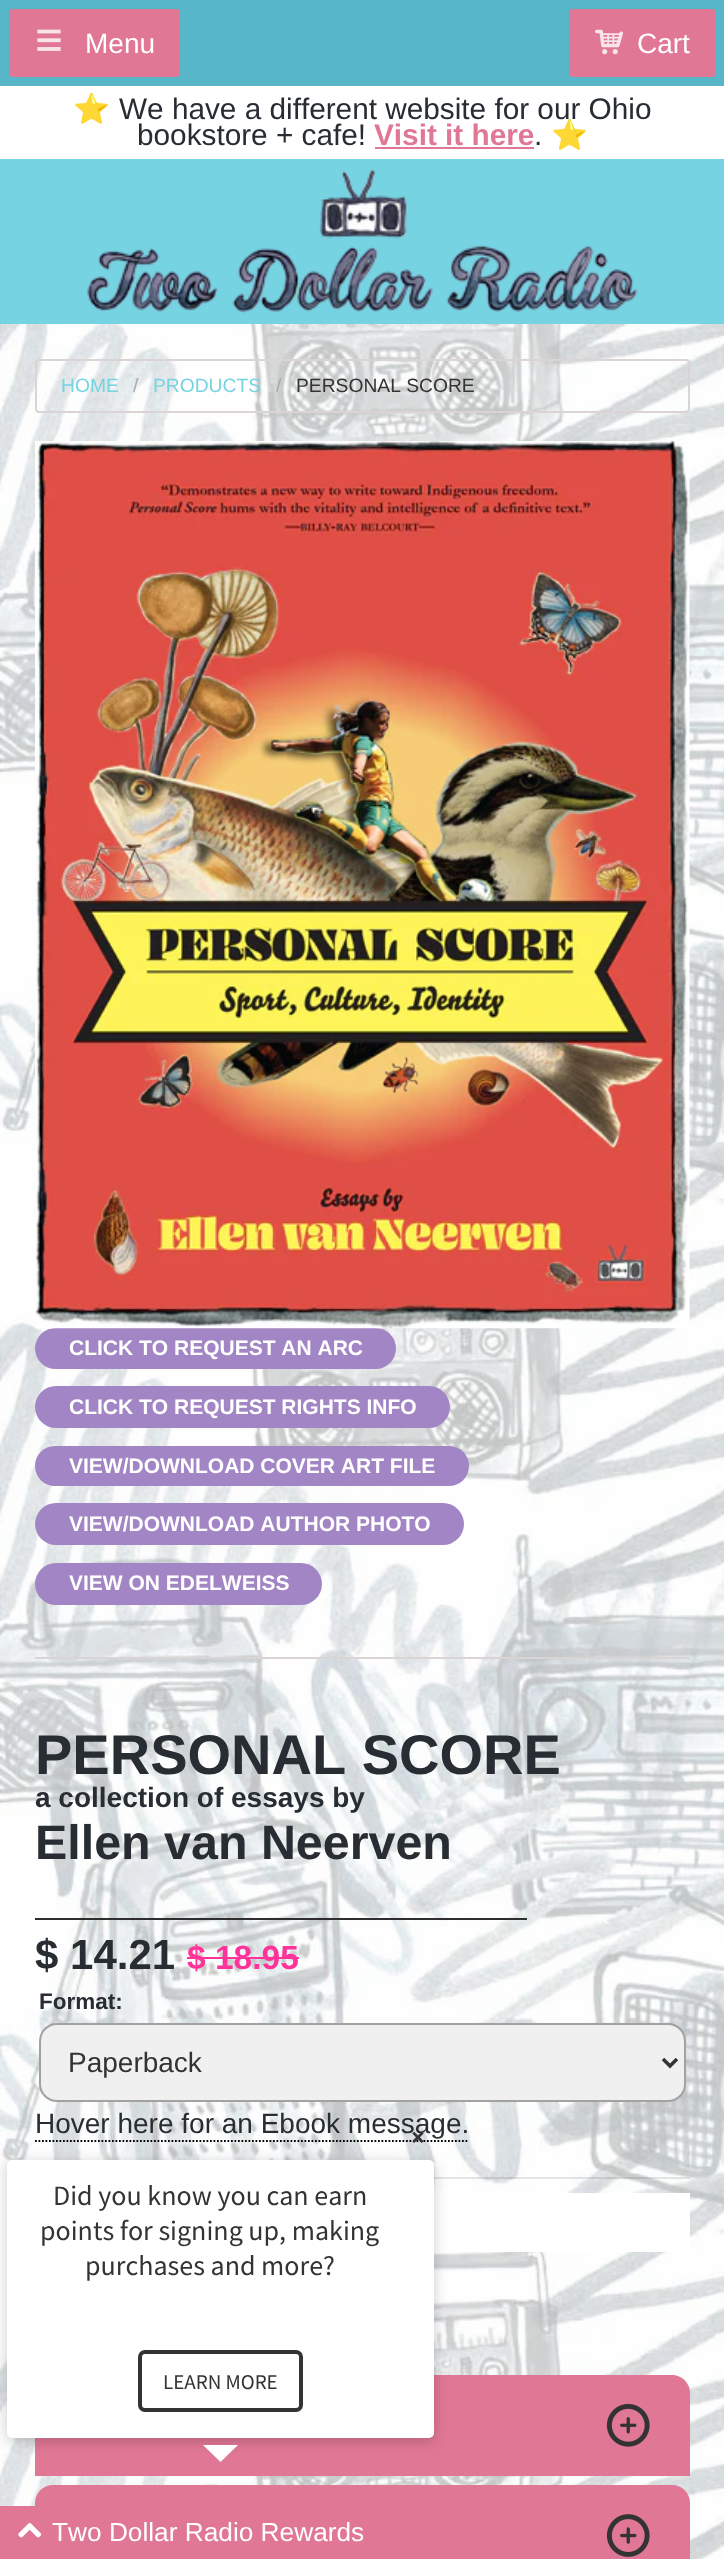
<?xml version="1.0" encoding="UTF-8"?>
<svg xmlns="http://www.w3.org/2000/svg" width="724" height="2559">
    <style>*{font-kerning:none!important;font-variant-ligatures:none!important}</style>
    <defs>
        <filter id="blur1" x="-50%" y="-200%" width="200%" height="500%"><feGaussianBlur stdDeviation="7"/></filter>
    </defs>
    <rect width="100%" height="100%" fill="#FFFFFF"/>
    <image x="0" y="324" width="724" height="2235" href="img_01.png"/>
    <rect x="0" y="0" width="724" height="86" fill="#57B6C7"/>
    <rect x="9" y="9" width="171" height="68" rx="4" fill="#E07795"/>
    <image x="37" y="29" width="24" height="22" href="img_02.png"/>
    <text x="85" y="53" font-family="Liberation Sans" font-size="28" fill="#FFFFFF">Menu</text>
    <rect x="569" y="9" width="147" height="68" rx="4" fill="#E07795"/>
    <image x="595" y="29" width="28" height="26" href="img_03.png"/>
    <text x="637" y="53" font-family="Liberation Sans" font-size="28" fill="#FFFFFF">Cart</text>
    <text x="73" y="119" font-family="Noto Color Emoji" font-size="29.75" fill="#272D33">⭐</text>
    <text x="119" y="119" font-family="Liberation Sans" font-size="29.75" fill="#272D33">We have a different website for our Ohio</text>
    <text x="137" y="145" font-family="Liberation Sans" font-size="29.75" fill="#272D33">bookstore + cafe!</text>
    <text x="374" y="145" font-family="Liberation Sans" font-size="29.75" font-weight="700" fill="#E07795">Visit it here</text>
    <rect x="375" y="147" width="159" height="2" fill="#E07795"/>
    <text x="534" y="145" font-family="Liberation Sans" font-size="29.75" fill="#272D33">.</text>
    <text x="551" y="145" font-family="Noto Color Emoji" font-size="29.75" fill="#272D33">⭐</text>
    <rect x="0" y="159" width="724" height="165" fill="#76D3E2"/>
    <image x="87" y="169" width="552" height="145" href="img_04.png"/>
    <rect x="0" y="324" width="724" height="2235" fill="#F6F6F7" fill-opacity="0.1"/>
    <rect x="36" y="360" width="653" height="52" rx="3" fill="none" stroke="#DBD4D4" stroke-width="2"/>
    <text x="61" y="392" font-family="Liberation Sans" font-size="19.25" fill="#76D3E2">HOME</text>
    <text x="133" y="392" font-family="Liberation Sans" font-size="19.25" fill="#AAAAAA">/</text>
    <text x="153" y="392" font-family="Liberation Sans" font-size="19.25" fill="#76D3E2">PRODUCTS</text>
    <text x="276" y="392" font-family="Liberation Sans" font-size="19.25" fill="#AAAAAA">/</text>
    <text x="296" y="392" font-family="Liberation Sans" font-size="19.25" fill="#333333">PERSONAL SCORE</text>
    <rect x="35" y="1328" width="361" height="41" rx="20.5" fill="#A285C5"/>
    <image x="35" y="441" width="655" height="888" href="img_05.png"/>
    <text x="69" y="1355" font-family="Liberation Sans" font-size="21" font-weight="700" fill="#FFFFFF">CLICK TO REQUEST AN ARC</text>
    <rect x="35" y="1386" width="415" height="42" rx="21" fill="#A285C5"/>
    <text x="69" y="1414" font-family="Liberation Sans" font-size="21" font-weight="700" fill="#FFFFFF">CLICK TO REQUEST RIGHTS INFO</text>
    <rect x="35" y="1446" width="434" height="40" rx="20" fill="#A285C5"/>
    <text x="69" y="1473" font-family="Liberation Sans" font-size="21" font-weight="700" fill="#FFFFFF">VIEW/DOWNLOAD COVER ART FILE</text>
    <rect x="35" y="1503" width="429" height="42" rx="21" fill="#A285C5"/>
    <text x="69" y="1531" font-family="Liberation Sans" font-size="21" font-weight="700" fill="#FFFFFF">VIEW/DOWNLOAD AUTHOR PHOTO</text>
    <rect x="35" y="1563" width="287" height="42" rx="21" fill="#A285C5"/>
    <text x="69" y="1590" font-family="Liberation Sans" font-size="21" font-weight="700" fill="#FFFFFF">VIEW ON EDELWEISS</text>
    <rect x="35" y="1657" width="655" height="2" fill="#DBD4D4"/>
    <text x="35" y="1774" font-family="Liberation Sans" font-size="56" font-weight="700" fill="#272D33">PERSONAL SCORE</text>
    <text x="35" y="1807" font-family="Liberation Sans" font-size="28" font-weight="700" fill="#272D33">a collection of essays by</text>
    <text x="35" y="1859" font-family="Liberation Sans" font-size="48.4" font-weight="700" fill="#272D33">Ellen van Neerven</text>
    <rect x="35" y="1918" width="492" height="2" fill="#2E2E2E"/>
    <text x="35" y="1969" font-family="Liberation Sans" font-size="42" font-weight="700" fill="#272D33">$ 14.21</text>
    <text x="187" y="1969" font-family="Liberation Sans" font-size="33.5" font-weight="700" fill="#FF3399">$ 18.95</text>
    <rect x="187" y="1957" width="112" height="2" fill="#FF3399"/>
    <text x="39" y="2009" font-family="Liberation Sans" font-size="22.5" font-weight="700" fill="#272D33">Format:</text>
    <rect x="40" y="2024" width="645" height="77" rx="17" fill="#F0F0F0" stroke="#A3A1A1" stroke-width="2"/>
    <path d="M 663 2059 L 670 2066 L 677 2059" fill="none" stroke="#333333" stroke-width="3.5"/>
    <text x="68" y="2072" font-family="Liberation Sans" font-size="28" fill="#333333">Paperback</text>
    <path d="M 35 2141 H 469" fill="none" stroke="#000000" stroke-width="1.8" stroke-dasharray="1.75 1.75"/>
    <text x="35" y="2133" font-family="Liberation Sans" font-size="28" fill="#272D33">Hover here for an Ebook message.</text>
    <rect x="434" y="2177" width="256" height="2" fill="#000000" fill-opacity="0.1"/>
    <rect x="434" y="2193" width="256" height="59" fill="#FFFFFF"/>
    <path d="M 53 2375 H 672 C 682 2375 690 2383 690 2393 V 2476 H 35 V 2393 C 35 2383 43 2375 53 2375 Z" fill="#E07795"/>
    <image x="606" y="2403" width="44" height="44" href="img_06.png"/>
    <path d="M 53 2485 H 672 C 682 2485 690 2493 690 2503 V 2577 H 35 V 2503 C 35 2493 43 2485 53 2485 Z" fill="#E07795"/>
    <image x="606" y="2514" width="44" height="43" href="img_07.png"/>
    <text x="411" y="2146" font-family="Source Sans Pro" font-size="26.25" font-weight="700" fill="#333333">×</text>
    <rect x="7" y="2163" width="427" height="278" rx="5" fill="#000000" fill-opacity="0.2" filter="url(#blur1)"/>
    <rect x="7" y="2160" width="427" height="278" rx="5" fill="#FFFFFF"/>
    <text x="53" y="2205" font-family="Source Sans Pro" font-size="28" fill="#333333">Did you know you can earn</text>
    <text x="40" y="2240" font-family="Source Sans Pro" font-size="28" fill="#333333">points for signing up, making</text>
    <text x="85" y="2275" font-family="Source Sans Pro" font-size="28" fill="#333333">purchases and more?</text>
    <rect x="140" y="2352" width="161" height="58" rx="5" fill="none" stroke="#333333" stroke-width="4"/>
    <text x="163" y="2389" font-family="Source Sans Pro" font-size="21" fill="#333333">LEARN MORE</text>
    <path d="M 203 2445 H 238 L 220.5 2462 Z" fill="#FFFFFF"/>
    <path d="M 0 2506 H 375 C 379 2506 382 2509 382 2513 V 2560 H 0 Z" fill="#E07795"/>
    <image x="18" y="2523" width="24" height="15" href="img_08.png"/>
    <text x="52" y="2541" font-family="Liberation Sans" font-size="26.25" fill="#FFFFFF">Two Dollar Radio Rewards</text>
</svg>
